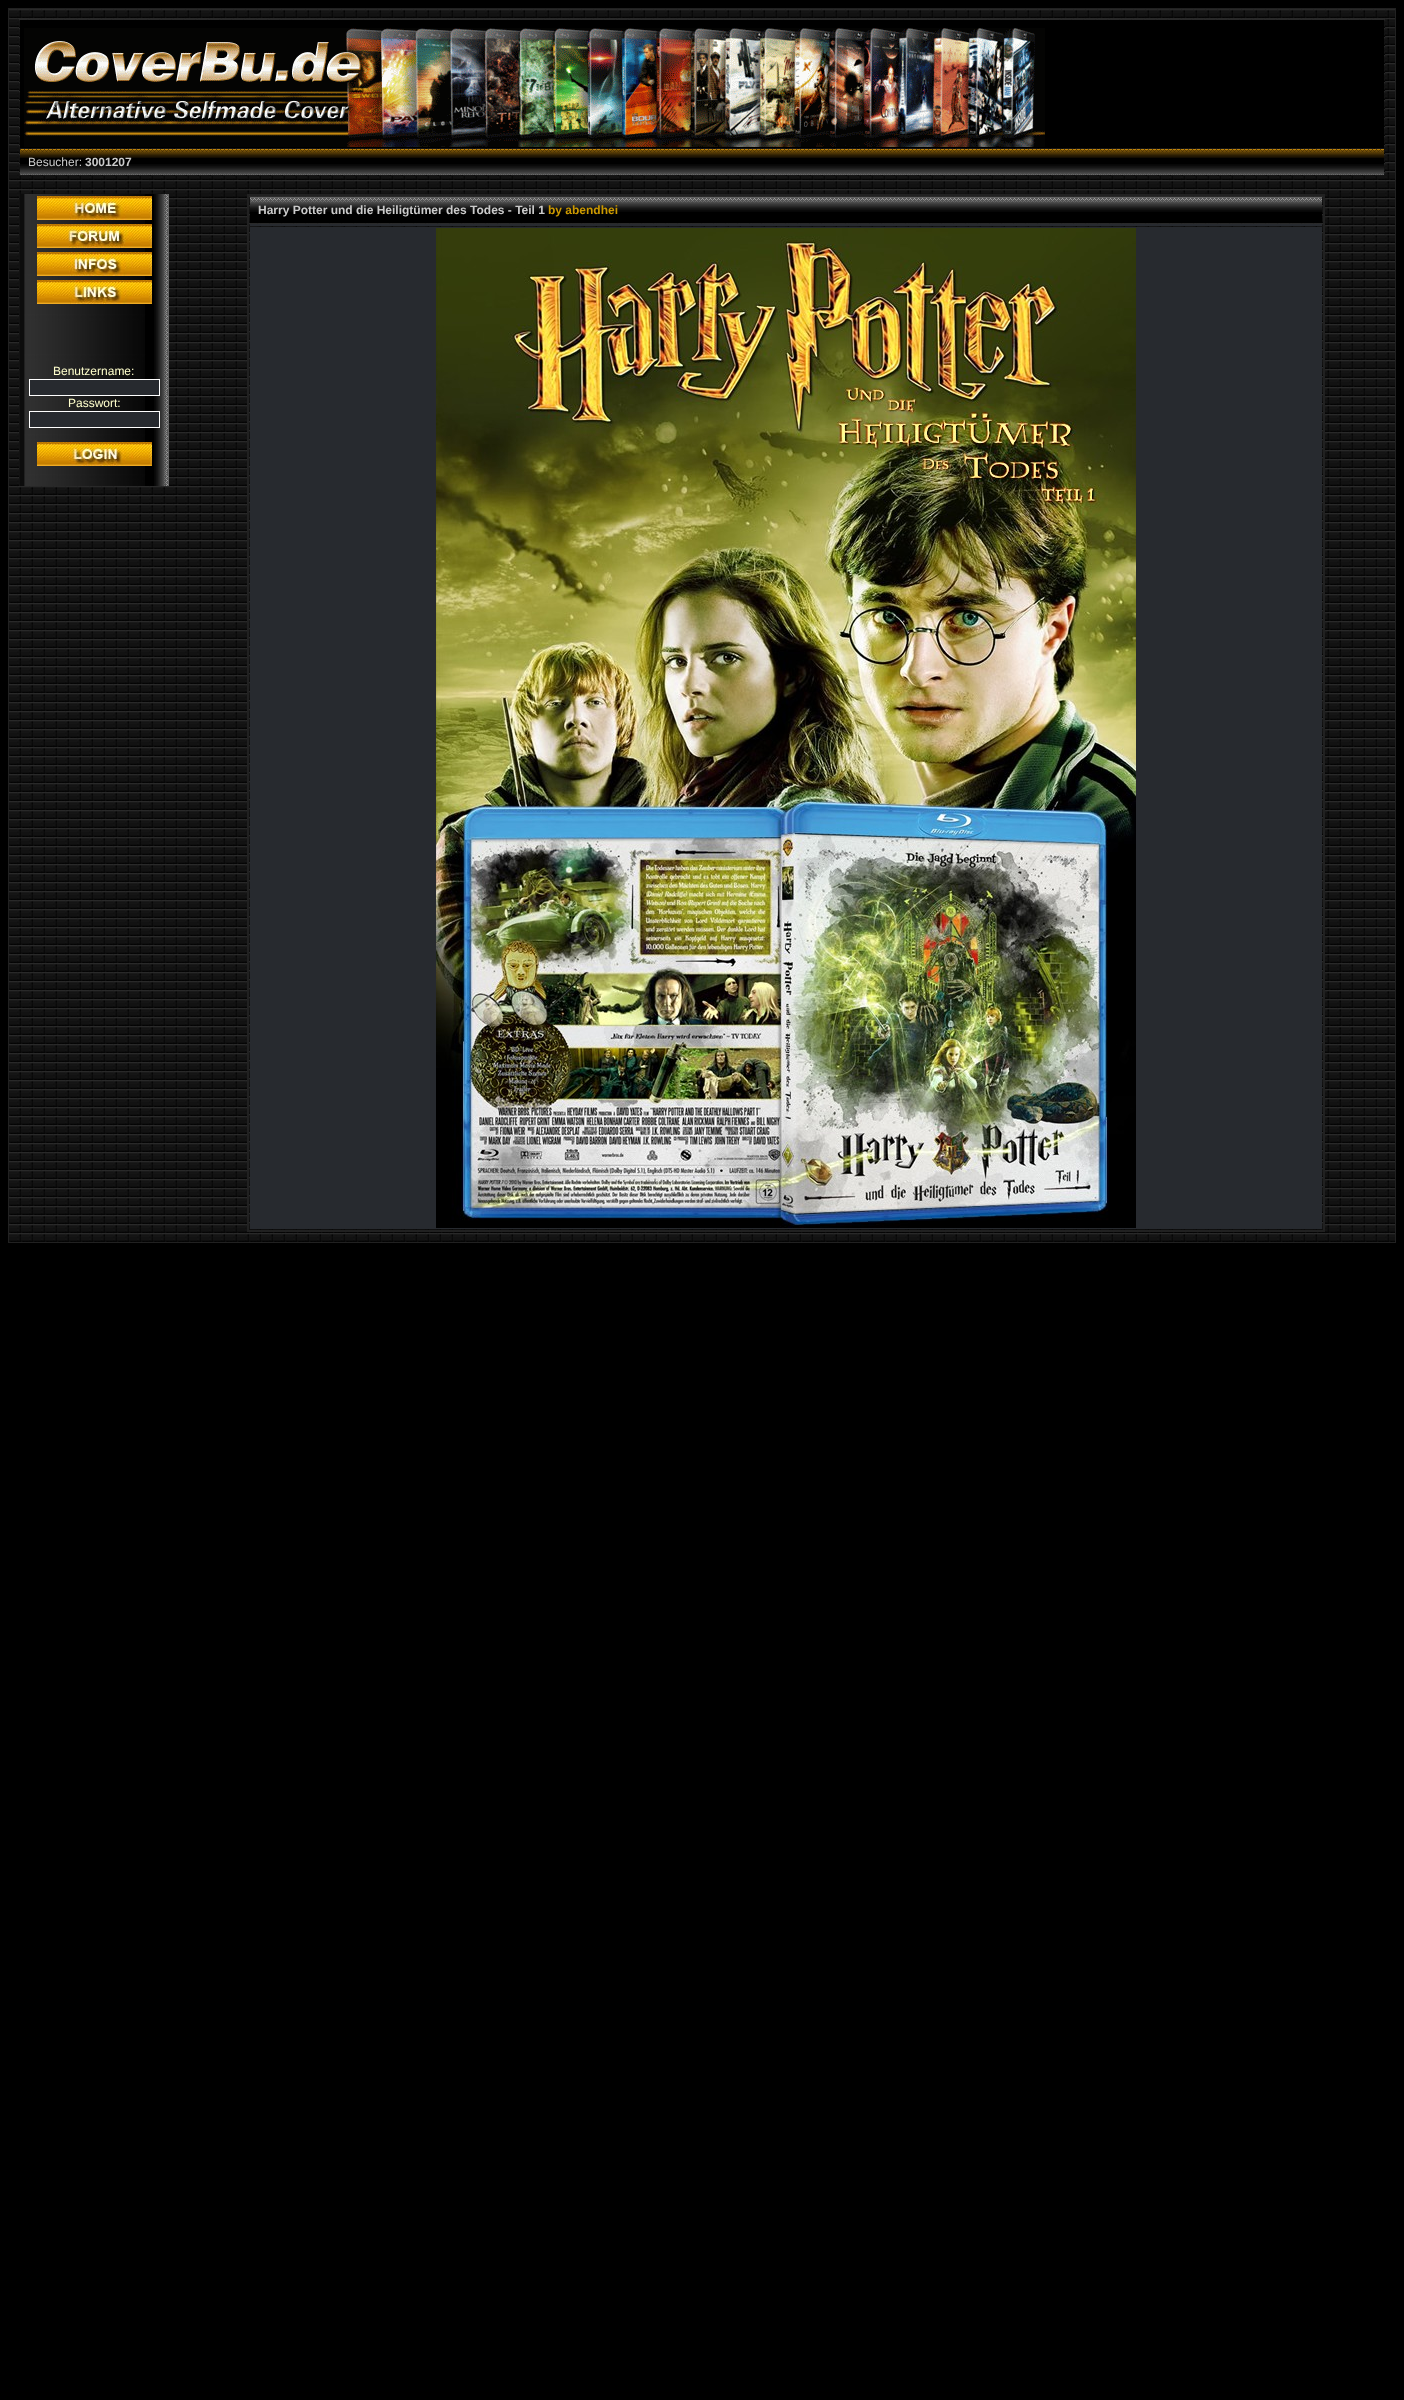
<?xml version="1.0" encoding="UTF-8"?>
<svg xmlns="http://www.w3.org/2000/svg" width="1404" height="2400">
    <rect width="100%" height="100%" fill="#000000"/>
    <image x="9" y="9" width="1386" height="1233" href="img_01.png"/>
    <rect x="8.5" y="8.5" width="1387" height="1234" fill="none" stroke="#212121"/>
    <image x="19" y="19" width="1366" height="157" href="img_02.png"/>
    <rect x="20" y="20" width="1364" height="128" fill="#000000"/>
    <image x="24" y="28" width="1021" height="119" href="img_03.png"/>
    <image x="20" y="149" width="1364" height="26" href="img_04.png"/>
    <text x="28" y="166" font-family="Liberation Sans" font-size="12" fill="#CBCBCB">Besucher:</text>
    <text x="85" y="166" font-family="Liberation Sans" font-size="12" font-weight="700" fill="#CBCBCB">3001207</text>
    <image x="249" y="196" width="1074" height="1034" href="img_05.png"/>
    <rect x="248" y="195" width="1076" height="1036" fill="none" stroke="#212121" stroke-width="2"/>
    <image x="250" y="197" width="1072" height="26" href="img_06.png"/>
    <text x="258" y="214" font-family="Liberation Sans" font-size="12" font-weight="700" fill="#CBCBCB">Harry Potter und die Heiligtümer des Todes - Teil 1</text>
    <text x="548" y="214" font-family="Liberation Sans" font-size="12" font-weight="700" fill="#CC9900">by abendhei</text>
    <rect x="250" y="224" width="1072" height="2" fill="#272A2F"/>
    <rect x="250" y="227" width="1072" height="1002" fill="#272A2F"/>
    <image x="436" y="228" width="700" height="1000" href="img_07.png"/>
    <image x="19" y="194" width="150" height="292" href="img_08.png"/>
    <image x="37" y="196" width="115" height="24" href="img_09.png"/>
    <image x="37" y="224" width="115" height="24" href="img_10.png"/>
    <image x="37" y="252" width="115" height="24" href="img_11.png"/>
    <image x="37" y="280" width="115" height="24" href="img_12.png"/>
    <text x="53" y="375" font-family="Liberation Sans" font-size="12" fill="#FFFFCC">Benutzername:</text>
    <rect x="29.5" y="379.5" width="130" height="16" fill="#272A2F" stroke="#FFFFFF"/>
    <text x="68" y="407" font-family="Liberation Sans" font-size="12" fill="#FFFFCC">Passwort:</text>
    <rect x="29.5" y="411.5" width="130" height="16" fill="#272A2F" stroke="#FFFFFF"/>
    <image x="37" y="442" width="115" height="24" href="img_13.png"/>
</svg>
